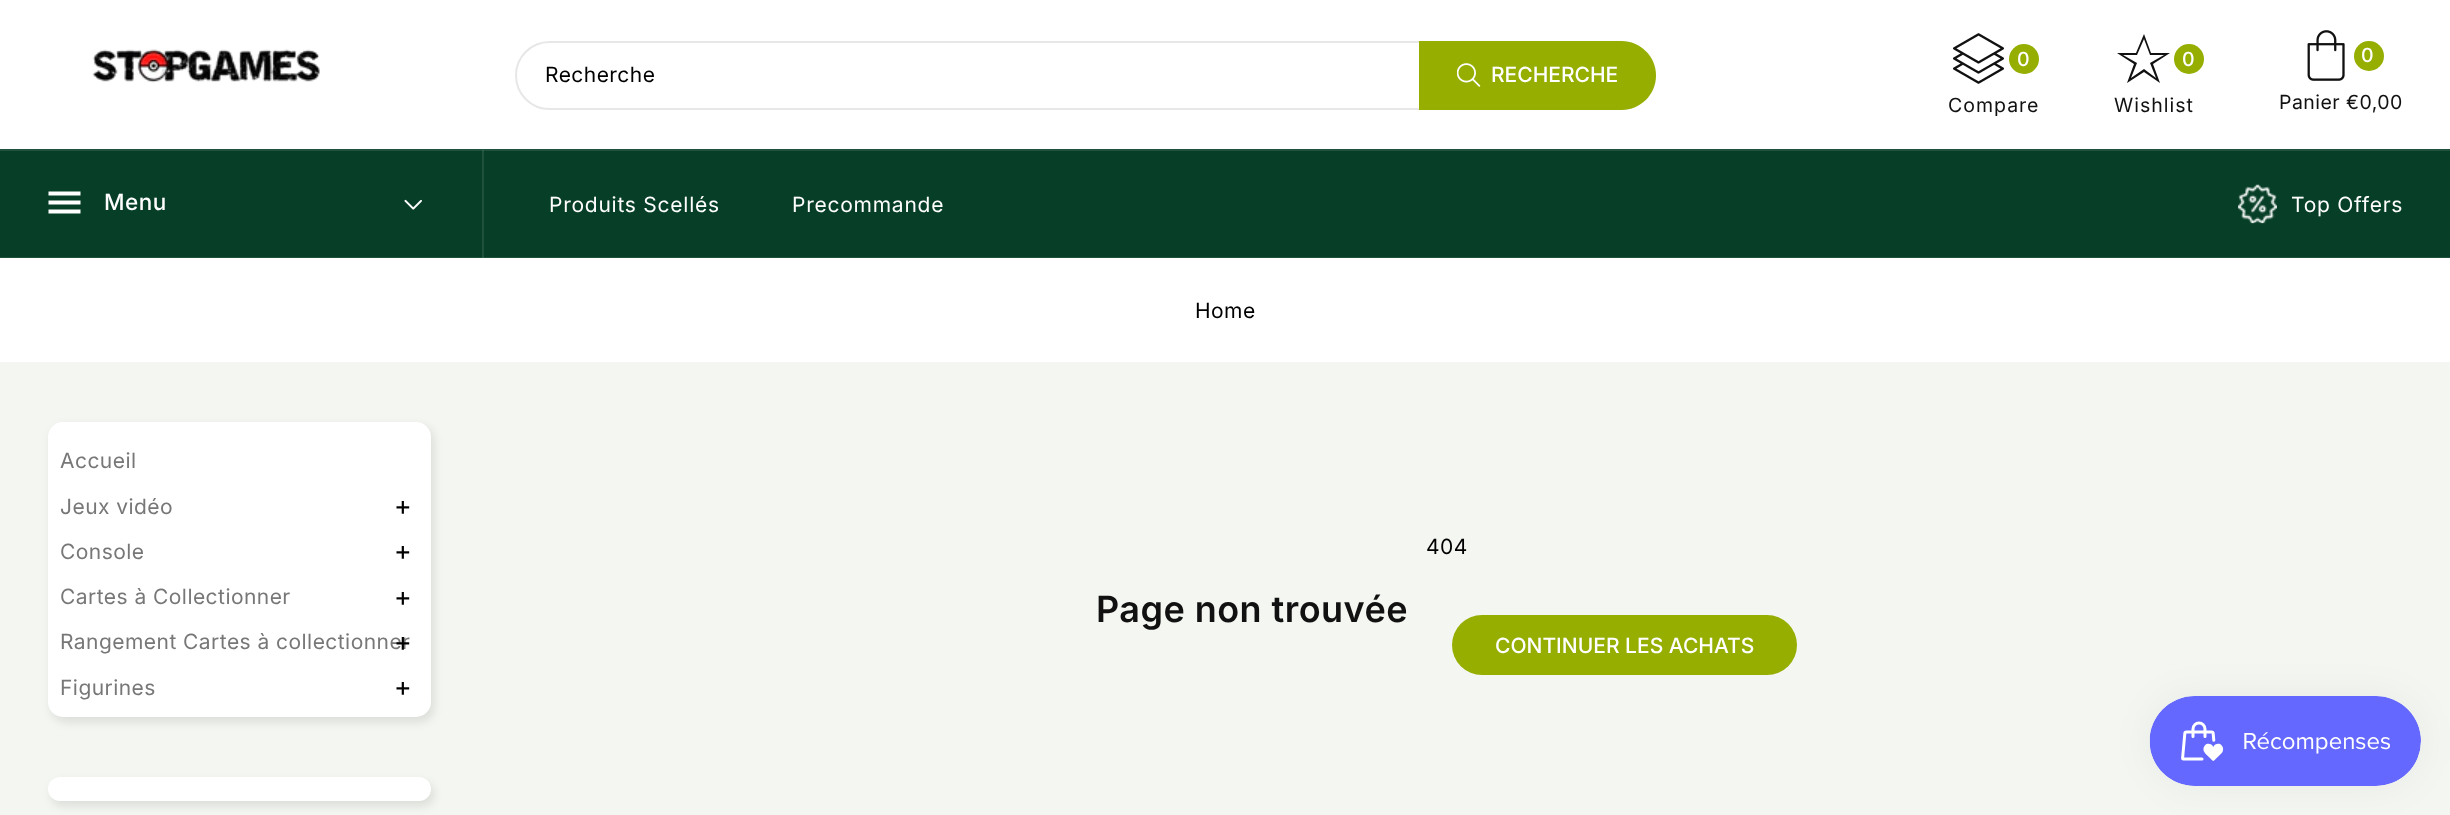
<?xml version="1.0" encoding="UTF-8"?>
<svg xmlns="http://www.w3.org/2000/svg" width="2450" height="815">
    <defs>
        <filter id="blur1" x="-50%" y="-200%" width="200%" height="500%"><feGaussianBlur stdDeviation="5"/></filter>
        <filter id="blur2" x="-50%" y="-200%" width="200%" height="500%"><feGaussianBlur stdDeviation="19"/></filter>
    </defs>
    <rect width="100%" height="100%" fill="#F3F6F1"/>
    <rect x="0" y="0" width="2450" height="149" fill="#FFFFFF"/>
    <image x="92" y="49" width="228" height="34" href="img_01.png"/>
    <rect x="516" y="42" width="1138" height="67" rx="33.5" fill="none" stroke="#E7E7E7" stroke-width="2"/>
    <text x="545" y="82" font-family="Inter" font-size="21" letter-spacing="0.45" fill="#000000">Recherche</text>
    <path d="M 1419 41 H 1621.5 C 1640.5 41 1656 56.5 1656 75.5 C 1656 94.5 1640.5 110 1621.5 110 H 1419 Z" fill="#95AE00"/>
    <image x="1457" y="63" width="24" height="24" href="img_02.png"/>
    <text x="1491" y="82" font-family="Inter" font-size="21" font-weight="500" fill="#FFFFFF">RECHERCHE</text>
    <image x="1953" y="33" width="51" height="51" href="img_03.png"/>
    <circle cx="2024" cy="59" r="15" fill="#95AE00"/>
    <text x="2017" y="66" font-family="Inter" font-size="19.5" font-weight="500" letter-spacing="1" fill="#FFFFFF">0</text>
    <text x="1948" y="112" font-family="Inter" font-size="19.5" letter-spacing="1" fill="#111111">Compare</text>
    <path d="M 2144 72 L 2127 83 L 2134 64 L 2117 53 H 2136 L 2144 34 L 2151 53 H 2170 L 2153 64 L 2160 83 Z M 2144 69 L 2131 78 L 2137 63 L 2123 55 H 2137 L 2144 39 L 2150 55 H 2164 L 2150 63 L 2156 78 Z" fill="#111111" fill-rule="evenodd"/>
    <circle cx="2189" cy="59" r="15" fill="#95AE00"/>
    <text x="2182" y="66" font-family="Inter" font-size="19.5" font-weight="500" letter-spacing="1" fill="#FFFFFF">0</text>
    <text x="2114" y="112" font-family="Inter" font-size="19.5" letter-spacing="1" fill="#111111">Wishlist</text>
    <image x="2307" y="30" width="38" height="51" href="img_04.png"/>
    <circle cx="2369" cy="56" r="15" fill="#95AE00"/>
    <text x="2361" y="62" font-family="Inter" font-size="19.5" font-weight="500" letter-spacing="1" fill="#FFFFFF">0</text>
    <text x="2279" y="109" font-family="Inter" font-size="19.5" letter-spacing="0.45" fill="#111111">Panier</text>
    <text x="2346" y="109" font-family="Inter" font-size="19.5" letter-spacing="0.45" fill="#111111">€0,00</text>
    <rect x="0" y="151" width="2450" height="106" fill="#073E27"/>
    <rect x="482" y="150" width="2" height="108" fill="#20513D"/>
    <rect x="0" y="257" width="2450" height="1" fill="#20513D"/>
    <rect x="482" y="257" width="2" height="1" fill="#366250"/>
    <rect x="0" y="149" width="2450" height="2" fill="#20513D"/>
    <rect x="482" y="150" width="2" height="1" fill="#366250"/>
    <path d="M 48.5 191.5 H 80.5 V 195.5 H 48.5 Z M 48.5 204.5 V 200.5 H 80.5 V 204.5 Z M 48.5 213.5 V 209.5 H 80.5 V 213.5 Z" fill="#FFFFFF"/>
    <text x="104" y="210" font-family="Inter" font-size="22.5" font-weight="500" letter-spacing="0.45" fill="#FFFFFF">Menu</text>
    <image x="404" y="199" width="18" height="11" href="img_05.png"/>
    <text x="549" y="212" font-family="Inter" font-size="21" letter-spacing="0.75" fill="#FFFFFF">Produits Scellés</text>
    <text x="792" y="212" font-family="Inter" font-size="21" letter-spacing="0.75" fill="#FFFFFF">Precommande</text>
    <image x="2238" y="184" width="39" height="40" href="img_06.png"/>
    <text x="2291" y="212" font-family="Inter" font-size="21" letter-spacing="0.75" fill="#FFFFFF">Top Offers</text>
    <rect x="0" y="258" width="2450" height="104" fill="#FFFFFF"/>
    <text x="1195" y="318" font-family="Inter" font-size="21" letter-spacing="0.45" fill="#000000">Home</text>
    <rect x="51" y="426" width="383" height="296" rx="15" fill="#000000" fill-opacity="0.1" filter="url(#blur1)"/>
    <rect x="48" y="422" width="383" height="295" rx="15" fill="#FFFFFF"/>
    <text x="60" y="468" font-family="Inter" font-size="21" letter-spacing="0.45" fill="#777777">Accueil</text>
    <text x="60" y="514" font-family="Inter" font-size="21" letter-spacing="0.45" fill="#777777">Jeux vidéo</text>
    <text x="394" y="515" font-family="'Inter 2'" font-size="27" letter-spacing="0.45" fill="#000000">+</text>
    <text x="60" y="559" font-family="Inter" font-size="21" letter-spacing="0.45" fill="#777777">Console</text>
    <text x="394" y="560" font-family="'Inter 2'" font-size="27" letter-spacing="0.45" fill="#000000">+</text>
    <text x="60" y="604" font-family="Inter" font-size="21" letter-spacing="0.45" fill="#777777">Cartes à Collectionner</text>
    <text x="394" y="606" font-family="'Inter 2'" font-size="27" letter-spacing="0.45" fill="#000000">+</text>
    <text x="60" y="649" font-family="Inter" font-size="21" letter-spacing="0.45" fill="#777777">Rangement Cartes à collectionner</text>
    <text x="394" y="651" font-family="'Inter 2'" font-size="27" letter-spacing="0.45" fill="#000000">+</text>
    <text x="60" y="695" font-family="Inter" font-size="21" letter-spacing="0.45" fill="#777777">Figurines</text>
    <text x="394" y="696" font-family="'Inter 2'" font-size="27" letter-spacing="0.45" fill="#000000">+</text>
    <rect x="51" y="782" width="383" height="24" rx="12" fill="#000000" fill-opacity="0.1" filter="url(#blur1)"/>
    <rect x="48" y="777" width="383" height="24" rx="12" fill="#FFFFFF"/>
    <text x="1426" y="554" font-family="Inter" font-size="21" letter-spacing="0.45" fill="#000000">404</text>
    <text x="1096" y="622" font-family="Inter" font-size="36" font-weight="600" letter-spacing="0.45" fill="#111111">Page non trouvée</text>
    <rect x="1452" y="615" width="345" height="60" rx="30" fill="#95AE00"/>
    <text x="1495" y="653" font-family="Inter" font-size="21" font-weight="500" fill="#FFFFFF">CONTINUER LES ACHATS</text>
    <rect x="2150" y="696" width="271" height="90" rx="45" fill="#000000" fill-opacity="0.05" filter="url(#blur2)"/>
    <image x="2149" y="696" width="272" height="90" href="img_07.png"/>
</svg>
